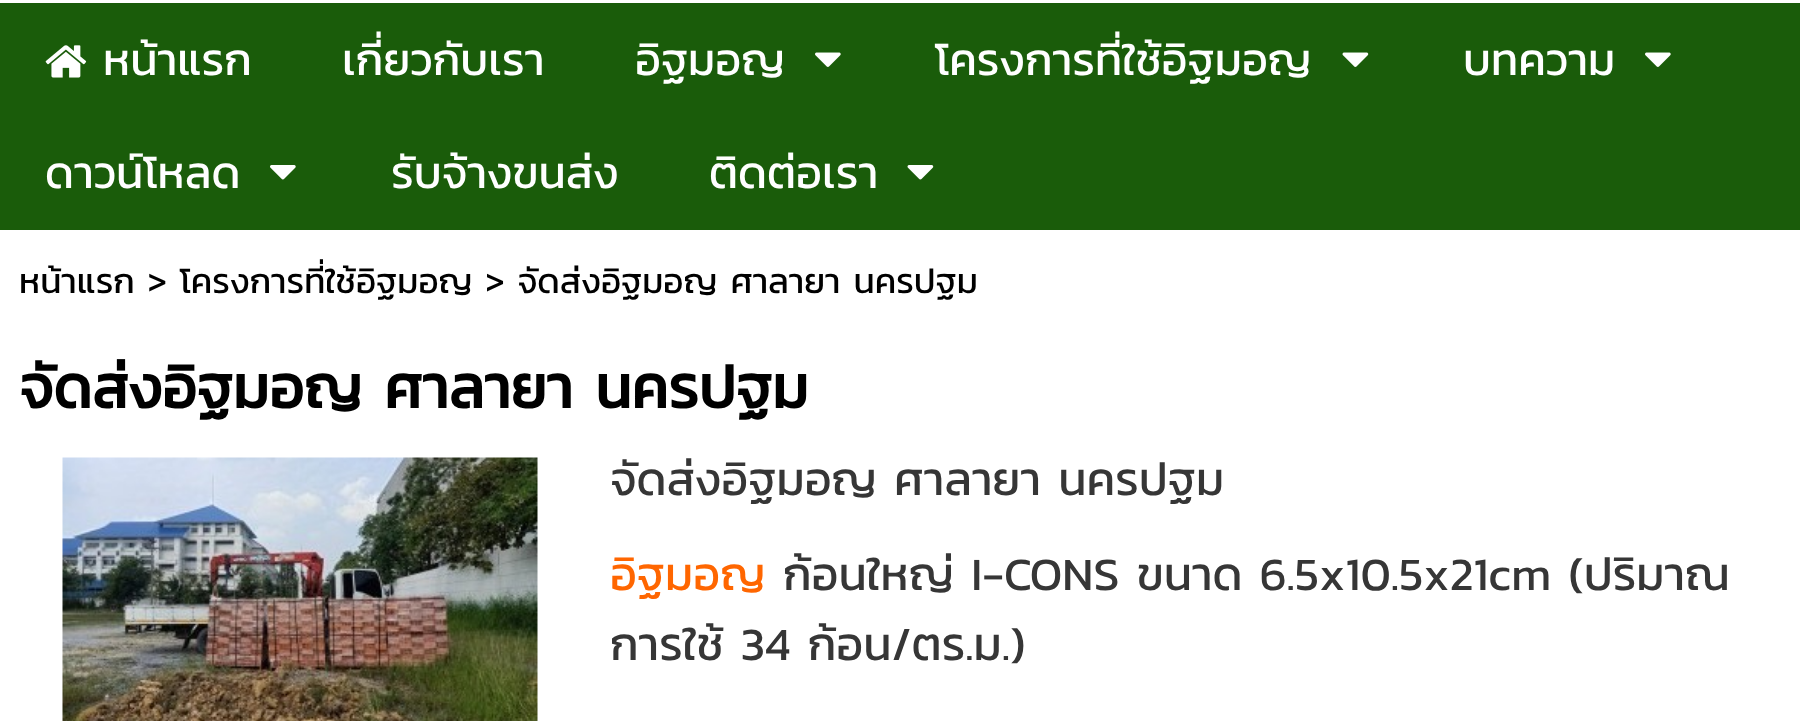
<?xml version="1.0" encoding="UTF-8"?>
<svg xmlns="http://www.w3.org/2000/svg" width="1800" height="721">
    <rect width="100%" height="100%" fill="#FFFFFF"/>
    <rect x="0" y="3" width="1800" height="227" fill="#1A5C0A"/>
    <image x="45" y="45" width="42" height="33" href="img_01.png"/>
    <text x="103" y="75" font-family="Kanit" font-size="45" fill="#FFFFFF">หน้าแรก</text>
    <text x="342" y="75" font-family="Kanit" font-size="45" fill="#FFFFFF">เกี่ยวกับเรา</text>
    <text x="635" y="75" font-family="Kanit" font-size="45" fill="#FFFFFF">อิฐมอญ</text>
    <image x="815" y="52" width="26" height="15" href="img_02.png"/>
    <text x="935" y="75" font-family="Kanit" font-size="45" fill="#FFFFFF">โครงการที่ใช้อิฐมอญ</text>
    <image x="1342" y="52" width="27" height="15" href="img_03.png"/>
    <text x="1463" y="75" font-family="Kanit" font-size="45" fill="#FFFFFF">บทความ</text>
    <image x="1645" y="52" width="26" height="15" href="img_02.png"/>
    <text x="45" y="188" font-family="Kanit" font-size="45" fill="#FFFFFF">ดาวน์โหลด</text>
    <image x="270" y="165" width="26" height="15" href="img_04.png"/>
    <text x="391" y="188" font-family="Kanit" font-size="45" fill="#FFFFFF">รับจ้างขนส่ง</text>
    <text x="709" y="188" font-family="Kanit" font-size="45" fill="#FFFFFF">ติดต่อเรา</text>
    <image x="907" y="165" width="27" height="15" href="img_05.png"/>
    <text x="19" y="293" font-family="Kanit" font-size="35" fill="#000000">หน้าแรก &gt; โครงการที่ใช้อิฐมอญ &gt; จัดส่งอิฐมอญ ศาลายา นครปฐม</text>
    <text x="19" y="408" font-family="Kanit" font-size="60" font-weight="700" fill="#000000">จัดส่งอิฐมอญ ศาลายา นครปฐม</text>
    <image x="62" y="457" width="476" height="264" href="img_06.png"/>
    <text x="610" y="495" font-family="Kanit" font-size="46.7" fill="#363636">จัดส่งอิฐมอญ ศาลายา นครปฐม</text>
    <text x="610" y="590" font-family="Kanit" font-size="46.7" fill="#FF6600">อิฐมอญ</text>
    <text x="783" y="590" font-family="Kanit" font-size="46.7" fill="#363636">ก้อนใหญ่ I-CONS ขนาด 6.5x10.5x21cm (ปริมาณ</text>
    <text x="610" y="660" font-family="Kanit" font-size="46.7" fill="#363636">การใช้ 34 ก้อน/ตร.ม.)</text>
</svg>
